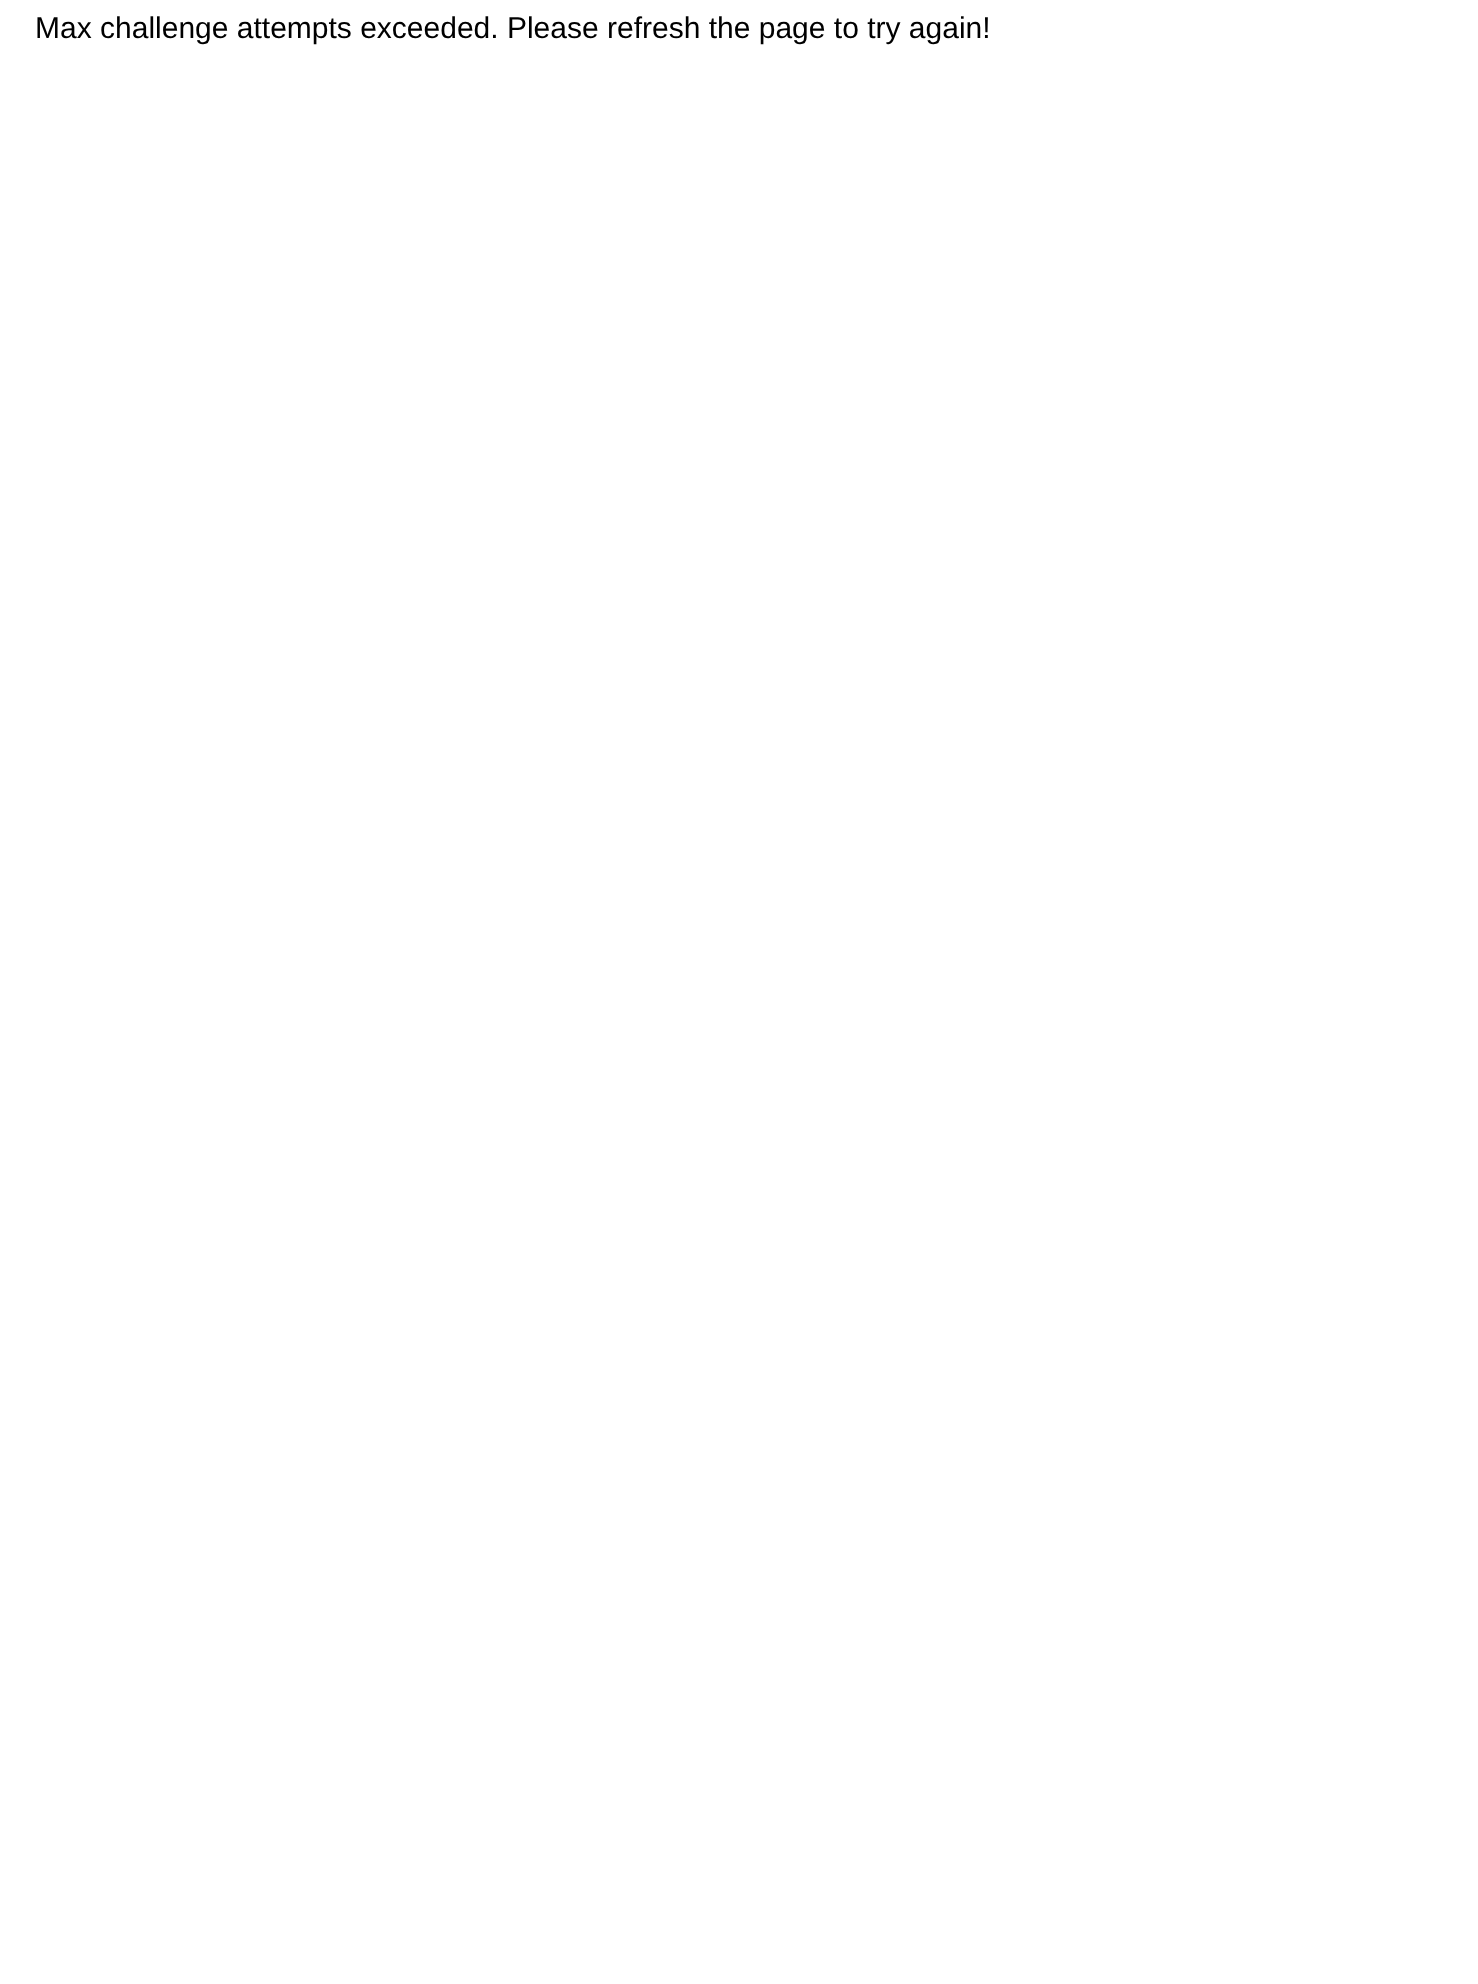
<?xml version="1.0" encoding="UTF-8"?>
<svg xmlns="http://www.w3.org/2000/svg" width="1478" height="1984">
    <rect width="100%" height="100%" fill="#FFFFFF"/>
    <text x="35" y="38" font-family="Liberation Sans" font-size="30" fill="#000000">Max challenge attempts exceeded. Please refresh the page to try again!</text>
</svg>
